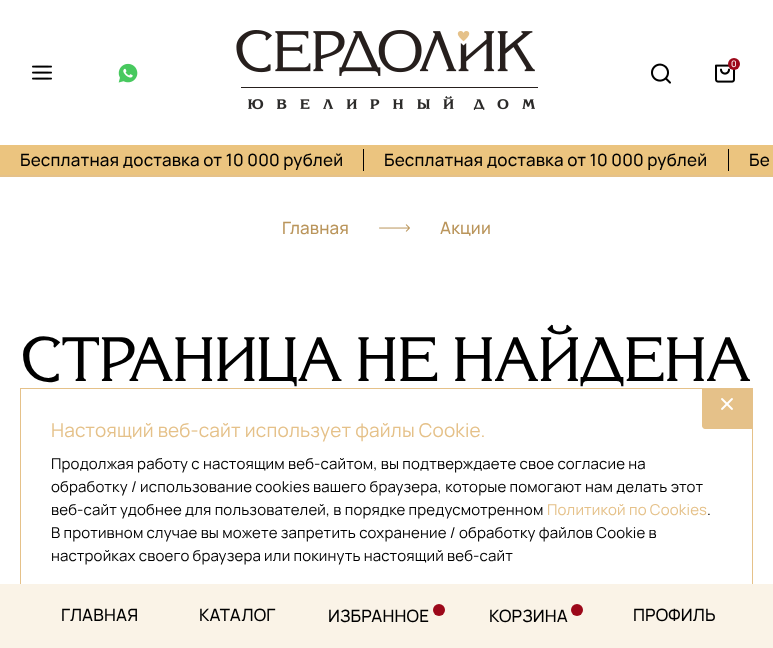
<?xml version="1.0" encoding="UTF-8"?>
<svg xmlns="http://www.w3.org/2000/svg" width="773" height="648">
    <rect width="100%" height="100%" fill="#FFFFFF"/>
    <image x="32" y="65" width="20" height="15" href="img_01.png"/>
    <image x="118" y="63" width="20" height="20" href="img_02.png"/>
    <image x="236" y="30" width="302" height="80" href="img_03.png"/>
    <image x="651" y="63" width="20" height="21" href="img_04.png"/>
    <image x="715" y="64" width="21" height="19" href="img_05.png"/>
    <circle cx="734" cy="64" r="6" fill="#9C081A"/>
    <text x="731" y="67" font-family="Manrope" font-size="9" font-weight="500" fill="#FFFFFF">0</text>
    <rect x="0" y="145" width="773" height="30" fill="#EBC47F"/>
    <rect x="0" y="175" width="773" height="2" fill="#E5C189"/>
    <rect x="363" y="149" width="1" height="22" fill="#000000"/>
    <text x="20" y="166" font-family="Manrope" font-size="17" font-weight="500" letter-spacing="0.17" fill="#000000">Бесплатная доставка от 10 000 рублей</text>
    <rect x="728" y="149" width="1" height="22" fill="#000000"/>
    <text x="384" y="166" font-family="Manrope" font-size="17" font-weight="500" letter-spacing="0.17" fill="#000000">Бесплатная доставка от 10 000 рублей</text>
    <text x="749" y="166" font-family="Manrope" font-size="17" font-weight="500" letter-spacing="0.17" fill="#000000">Бе</text>
    <text x="282" y="234" font-family="Manrope" font-size="17" font-weight="500" letter-spacing="0.17" fill="#BA955B">Главная</text>
    <image x="379" y="224" width="31" height="8" href="img_06.png"/>
    <text x="440" y="234" font-family="Manrope" font-size="17" font-weight="500" letter-spacing="0.17" fill="#BA955B">Акции</text>
    <text x="22" y="381" font-family="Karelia" font-size="64" letter-spacing="0.6" fill="#000000">СТРАНИЦА НЕ НАЙДЕНА</text>
    <rect x="20.5" y="388.5" width="732" height="209" fill="none" stroke="#E5C189"/>
    <path d="M 702 389 H 752 V 429 H 705 C 703.5 429 702 427.5 702 426 Z" fill="#E5C189"/>
    <image x="721" y="398" width="12" height="12" href="img_07.png"/>
    <text x="51" y="437" font-family="Manrope" font-size="19" letter-spacing="0.17" fill="#E5C189">Настоящий веб-сайт использует файлы Cookie.</text>
    <text font-family="Manrope" font-size="15" letter-spacing="0.17" fill="#000000">
        <tspan x="51" y="469">Продолжая работу с настоящим веб-сайтом, вы подтверждаете свое согласие на</tspan>
        <tspan x="51" y="492">обработку / использование cookies вашего браузера, которые помогают нам делать этот</tspan>
        <tspan x="51" y="515">веб-сайт удобнее для пользователей, в порядке предусмотренном</tspan>
    </text>
    <text x="547" y="515" font-family="Manrope" font-size="15" letter-spacing="0.17" fill="#E5C189">Политикой по Cookies</text>
    <text x="707" y="515" font-family="Manrope" font-size="15" letter-spacing="0.17" fill="#000000">.</text>
    <text font-family="Manrope" font-size="15" letter-spacing="0.17" fill="#000000">
        <tspan x="51" y="538">В противном случае вы можете запретить сохранение / обработку файлов Cookie в</tspan>
        <tspan x="51" y="561">настройках своего браузера или покинуть настоящий веб-сайт</tspan>
    </text>
    <rect x="0" y="584" width="773" height="64" fill="#FAF3E7"/>
    <text x="61" y="621" font-family="Manrope" font-size="17" font-weight="500" letter-spacing="0.17" fill="#000000">ГЛАВНАЯ</text>
    <text x="199" y="621" font-family="Manrope" font-size="17" font-weight="500" letter-spacing="0.17" fill="#000000">КАТАЛОГ</text>
    <text x="328" y="622" font-family="Manrope" font-size="17" font-weight="500" letter-spacing="0.17" fill="#000000">ИЗБРАННОЕ</text>
    <circle cx="439" cy="610" r="6" fill="#9C081A"/>
    <text x="489" y="622" font-family="Manrope" font-size="17" font-weight="500" letter-spacing="0.17" fill="#000000">КОРЗИНА</text>
    <circle cx="577" cy="610" r="6" fill="#9C081A"/>
    <text x="633" y="621" font-family="Manrope" font-size="17" font-weight="500" letter-spacing="0.17" fill="#000000">ПРОФИЛЬ</text>
</svg>
